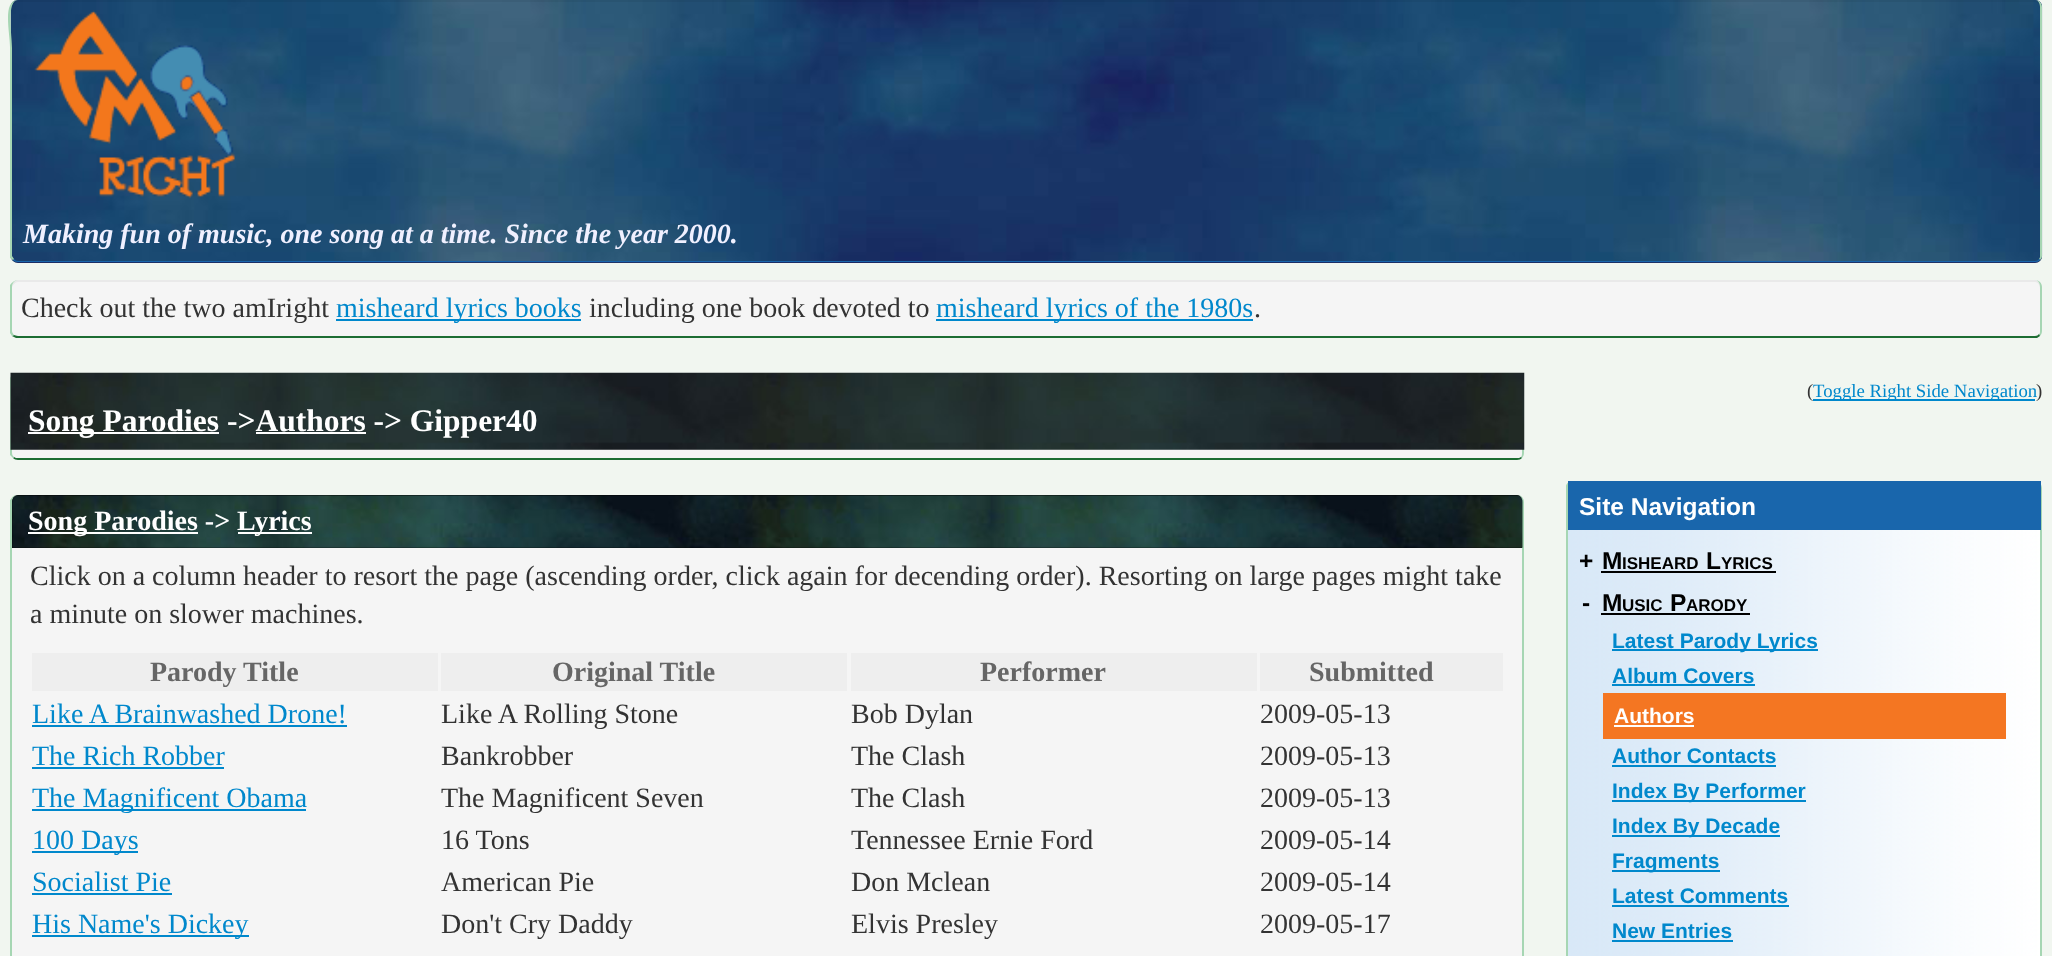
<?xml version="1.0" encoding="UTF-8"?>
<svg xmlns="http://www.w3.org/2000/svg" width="2052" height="956">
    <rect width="100%" height="100%" fill="#F1F6F0"/>
    <rect x="11" y="0" width="2031" height="263" rx="7" fill="#1B2763"/>
    <image x="10" y="0" width="2033" height="263" href="img_01.png"/>
    <path d="M 18 2 H 2035 C 2038 2 2040 5 2040 9 V 258 V 256 V 7 C 2040 3 2038 0 2035 0 H 18 C 15 0 12 3 12 7 C 13 4 16 2 18 2 Z" fill="#000000" fill-opacity="0.05"/>
    <path d="M 2042 256 V 7 C 2042 3 2039 0 2035 0 C 2038 0 2040 3 2040 7 V 256 C 2040 257 2040 258 2039 259 L 2040 260 C 2041 259 2042 258 2042 256 Z" fill="#A6D6B3"/>
    <path d="M 14 259 C 15 260 16 261 18 261 H 2035 C 2037 261 2038 260 2039 259 L 2040 260 C 2039 261 2037 262 2035 262 H 18 C 16 262 14 261 13 260 Z" fill="#1966AC"/>
    <path d="M 18 0 C 6 0 12 36 12 48 V 256 L 14 259 L 13 260 L 10 258 V 47 C 10 33 2 0 18 0 Z" fill="#A6D6B3"/>
    <image x="34" y="10" width="201" height="189" href="img_02.png"/>
    <text x="23" y="243" font-family="Liberation Serif" font-size="28" font-weight="700" font-style="italic" fill="#F0F0FF">Making fun of music, one song at a time. Since the year 2000.</text>
    <rect x="11" y="280" width="2031" height="58" rx="7" fill="#F5F5F5"/>
    <path d="M 18 282 H 2035 C 2038 282 2040 285 2040 289 V 333 V 331 V 287 C 2040 283 2038 280 2035 280 H 18 C 15 280 12 283 12 287 C 13 284 16 282 18 282 Z" fill="#E9E9E9"/>
    <path d="M 2042 331 V 287 C 2042 283 2039 280 2035 280 C 2038 280 2040 283 2040 287 V 331 C 2040 332 2040 334 2039 334 L 2040 336 C 2041 335 2042 333 2042 331 Z" fill="#A6D6B3"/>
    <path d="M 14 335 C 15 335 16 336 18 336 H 2035 C 2037 336 2038 335 2039 334 L 2040 336 L 2037 338 H 16 L 12 336 Z" fill="#1D6D33"/>
    <path d="M 18 280 C 15 280 12 283 12 287 V 331 C 12 332 13 334 14 335 L 12 336 L 10 333 V 285 C 12 282 15 280 18 280 Z" fill="#A6D6B3"/>
    <text x="21" y="317" font-family="Liberation Serif" font-size="28" fill="#333333">Check out the two amIright</text>
    <rect x="336" y="319" width="245" height="2" fill="#0088CC"/>
    <text x="336" y="317" font-family="Liberation Serif" font-size="28" fill="#0088CC">misheard lyrics books</text>
    <text x="589" y="317" font-family="Liberation Serif" font-size="28" fill="#333333">including one book devoted to</text>
    <rect x="936" y="319" width="317" height="2" fill="#0088CC"/>
    <text x="936" y="317" font-family="Liberation Serif" font-size="28" fill="#0088CC">misheard lyrics of the 1980s</text>
    <text x="1254" y="317" font-family="Liberation Serif" font-size="28" fill="#333333">.</text>
    <text x="1807" y="397" font-family="Liberation Serif" font-size="18.75" fill="#333333">(</text>
    <rect x="1813" y="399" width="222" height="2" fill="#0088CC"/>
    <text x="1813" y="397" font-family="Liberation Serif" font-size="18.75" fill="#0088CC">Toggle Right Side Navigation</text>
    <text x="2036" y="397" font-family="Liberation Serif" font-size="18.75" fill="#333333">)</text>
    <rect x="11" y="373" width="1513" height="87" rx="7" fill="#F5F5F5"/>
    <path d="M 1522 458 C 1523 457 1524 455 1524 453 V 380 C 1524 376 1521 373 1517 373 C 1520 373 1522 376 1522 380 V 453 C 1522 454 1522 456 1521 457 Z" fill="#A6D6B3"/>
    <path d="M 14 457 C 15 458 17 458 18 458 H 1517 C 1518 458 1520 458 1521 457 L 1522 458 C 1521 459 1519 460 1517 460 H 18 C 16 460 14 459 13 458 Z" fill="#1D6D33"/>
    <path d="M 18 373 C 15 373 12 376 12 380 V 453 C 12 455 13 456 14 457 L 13 458 L 10 455 V 378 C 11 375 16 373 18 373 Z" fill="#A6D6B3"/>
    <image x="10" y="372" width="1515" height="78" href="img_03.png"/>
    <rect x="28" y="432" width="191" height="2" fill="#FFFFFF"/>
    <text x="28" y="431" font-family="Liberation Serif" font-size="31.5" font-weight="700" fill="#FFFFFF">Song Parodies -&gt;Authors -&gt; Gipper40</text>
    <rect x="256" y="432" width="110" height="2" fill="#FFFFFF"/>
    <rect x="11" y="495" width="1513" height="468" rx="7" fill="#F5F5F5"/>
    <path d="M 1521 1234 C 1522 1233 1522 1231 1522 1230 V 502 C 1522 499 1521 496 1518 495 H 1519 C 1522 496 1524 499 1524 502 V 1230 C 1524 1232 1523 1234 1522 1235 Z" fill="#A6D6B3"/>
    <path d="M 16 495 C 14 496 12 499 12 502 V 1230 C 12 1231 13 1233 14 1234 L 13 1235 L 10 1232 V 500 L 11 499 C 12 497 14 495 16 495 Z" fill="#A6D6B3"/>
    <path d="M 18 495 H 1517 C 1520 495 1522 498 1522 502 V 548 H 12 V 502 C 12 498 15 495 18 495 Z" fill="#000000"/>
    <image x="12" y="495" width="1511" height="53" href="img_04.png"/>
    <rect x="28" y="532" width="170" height="2" fill="#FFFFFF"/>
    <text x="28" y="530" font-family="Liberation Serif" font-size="28" font-weight="700" fill="#FFFFFF">Song Parodies -&gt;</text>
    <rect x="238" y="532" width="74" height="2" fill="#FFFFFF"/>
    <text x="237" y="530" font-family="Liberation Serif" font-size="28" font-weight="700" fill="#FFFFFF">Lyrics</text>
    <text font-family="Liberation Serif" font-size="28" fill="#333333">
        <tspan x="30" y="585">Click on a column header to resort the page (ascending order, click again for decending order). Resorting on large pages might take</tspan>
        <tspan x="30" y="623">a minute on slower machines.</tspan>
    </text>
    <rect x="32" y="653" width="406" height="38" fill="#EEEEEE"/>
    <text x="150" y="681" font-family="Liberation Serif" font-size="28" font-weight="700" fill="#666666">Parody Title</text>
    <rect x="441" y="653" width="406" height="38" fill="#EEEEEE"/>
    <text x="552" y="681" font-family="Liberation Serif" font-size="28" font-weight="700" fill="#666666">Original Title</text>
    <rect x="851" y="653" width="406" height="38" fill="#EEEEEE"/>
    <text x="980" y="681" font-family="Liberation Serif" font-size="28" font-weight="700" fill="#666666">Performer</text>
    <rect x="1260" y="653" width="243" height="38" fill="#EEEEEE"/>
    <text x="1309" y="681" font-family="Liberation Serif" font-size="28" font-weight="700" fill="#666666">Submitted</text>
    <text x="32" y="723" font-family="Liberation Serif" font-size="28" fill="#0088CC">Like A Brainwashed Drone!</text>
    <rect x="32" y="725" width="315" height="2" fill="#0088CC"/>
    <text x="441" y="723" font-family="Liberation Serif" font-size="28" fill="#333333">Like A Rolling Stone</text>
    <text x="851" y="723" font-family="Liberation Serif" font-size="28" fill="#333333">Bob Dylan</text>
    <text x="1260" y="723" font-family="Liberation Serif" font-size="28" fill="#333333">2009-05-13</text>
    <text x="32" y="765" font-family="Liberation Serif" font-size="28" fill="#0088CC">The Rich Robber</text>
    <rect x="32" y="767" width="192" height="2" fill="#0088CC"/>
    <text x="441" y="765" font-family="Liberation Serif" font-size="28" fill="#333333">Bankrobber</text>
    <text x="851" y="765" font-family="Liberation Serif" font-size="28" fill="#333333">The Clash</text>
    <text x="1260" y="765" font-family="Liberation Serif" font-size="28" fill="#333333">2009-05-13</text>
    <rect x="32" y="809" width="274" height="2" fill="#0088CC"/>
    <text x="32" y="807" font-family="Liberation Serif" font-size="28" fill="#0088CC">The Magnificent Obama</text>
    <text x="441" y="807" font-family="Liberation Serif" font-size="28" fill="#333333">The Magnificent Seven</text>
    <text x="851" y="807" font-family="Liberation Serif" font-size="28" fill="#333333">The Clash</text>
    <text x="1260" y="807" font-family="Liberation Serif" font-size="28" fill="#333333">2009-05-13</text>
    <rect x="32" y="851" width="106" height="2" fill="#0088CC"/>
    <text x="32" y="849" font-family="Liberation Serif" font-size="28" fill="#0088CC">100 Days</text>
    <text x="441" y="849" font-family="Liberation Serif" font-size="28" fill="#333333">16 Tons</text>
    <text x="851" y="849" font-family="Liberation Serif" font-size="28" fill="#333333">Tennessee Ernie Ford</text>
    <text x="1260" y="849" font-family="Liberation Serif" font-size="28" fill="#333333">2009-05-14</text>
    <text x="32" y="891" font-family="Liberation Serif" font-size="28" fill="#0088CC">Socialist Pie</text>
    <rect x="32" y="893" width="140" height="2" fill="#0088CC"/>
    <text x="441" y="891" font-family="Liberation Serif" font-size="28" fill="#333333">American Pie</text>
    <text x="851" y="891" font-family="Liberation Serif" font-size="28" fill="#333333">Don Mclean</text>
    <text x="1260" y="891" font-family="Liberation Serif" font-size="28" fill="#333333">2009-05-14</text>
    <rect x="32" y="935" width="217" height="2" fill="#0088CC"/>
    <text x="32" y="933" font-family="Liberation Serif" font-size="28" fill="#0088CC">His Name's Dickey</text>
    <text x="441" y="933" font-family="Liberation Serif" font-size="28" fill="#333333">Don't Cry Daddy</text>
    <text x="851" y="933" font-family="Liberation Serif" font-size="28" fill="#333333">Elvis Presley</text>
    <text x="1260" y="933" font-family="Liberation Serif" font-size="28" fill="#333333">2009-05-17</text>
    <image x="1568" y="483" width="474" height="473" href="img_05.png"/>
    <path d="M 2039 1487 C 2040 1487 2040 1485 2040 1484 V 488 C 2040 485 2039 482 2036 481 H 2037 C 2040 482 2042 485 2042 488 V 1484 C 2042 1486 2041 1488 2040 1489 Z" fill="#A6D6B3"/>
    <path d="M 1572 481 C 1569 482 1568 485 1568 488 V 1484 C 1568 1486 1569 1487 1570 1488 L 1568 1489 L 1566 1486 V 486 C 1566 484 1569 481 1572 481 Z" fill="#A6D6B3"/>
    <rect x="1568" y="481" width="473" height="49" fill="#1966AC"/>
    <text x="1579" y="515" font-family="Liberation Sans" font-size="24.5" font-weight="700" fill="#FFFFFF">Site Navigation</text>
    <text x="1579" y="569" font-family="Liberation Sans" font-size="24.5" font-weight="700" fill="#000000">+</text>
    <text x="1602" y="569" font-family="Liberation Sans" font-size="24.5" font-weight="700" fill="#000000">M</text>
    <text x="1622" y="569" font-family="Liberation Sans" font-size="17" font-weight="700" fill="#000000">ISHEARD</text>
    <rect x="1601" y="571" width="175" height="2" fill="#000000"/>
    <text x="1706" y="569" font-family="Liberation Sans" font-size="24.5" font-weight="700" fill="#000000">L</text>
    <text x="1721" y="569" font-family="Liberation Sans" font-size="17" font-weight="700" fill="#000000">YRICS</text>
    <text x="1582" y="611" font-family="Liberation Sans" font-size="24.5" font-weight="700" fill="#000000">-</text>
    <text x="1602" y="611" font-family="Liberation Sans" font-size="24.5" font-weight="700" fill="#000000">M</text>
    <text x="1622" y="611" font-family="Liberation Sans" font-size="17" font-weight="700" fill="#000000">USIC</text>
    <rect x="1601" y="613" width="149" height="2" fill="#000000"/>
    <text x="1670" y="611" font-family="Liberation Sans" font-size="24.5" font-weight="700" fill="#000000">P</text>
    <text x="1686" y="611" font-family="Liberation Sans" font-size="17" font-weight="700" fill="#000000">ARODY</text>
    <rect x="1612" y="649" width="206" height="2" fill="#0088CC"/>
    <text font-family="Liberation Sans" font-size="21" font-weight="700" fill="#0088CC">
        <tspan x="1612" y="648">Latest Parody Lyrics</tspan>
        <tspan x="1612" y="683">Album Covers</tspan>
    </text>
    <rect x="1612" y="684" width="143" height="2" fill="#0088CC"/>
    <rect x="1603" y="693" width="403" height="46" fill="#F47622"/>
    <text x="1614" y="723" font-family="Liberation Sans" font-size="21" font-weight="700" fill="#FFFFFF">Authors</text>
    <rect x="1614" y="725" width="80" height="2" fill="#FFFFFF"/>
    <text x="1612" y="763" font-family="Liberation Sans" font-size="21" font-weight="700" fill="#0088CC">Author Contacts</text>
    <rect x="1612" y="765" width="164" height="2" fill="#0088CC"/>
    <rect x="1612" y="800" width="194" height="2" fill="#0088CC"/>
    <text x="1612" y="798" font-family="Liberation Sans" font-size="21" font-weight="700" fill="#0088CC">Index By Performer</text>
    <rect x="1612" y="835" width="168" height="2" fill="#0088CC"/>
    <text x="1612" y="833" font-family="Liberation Sans" font-size="21" font-weight="700" fill="#0088CC">Index By Decade</text>
    <rect x="1612" y="870" width="108" height="2" fill="#0088CC"/>
    <text font-family="Liberation Sans" font-size="21" font-weight="700" fill="#0088CC">
        <tspan x="1612" y="868">Fragments</tspan>
        <tspan x="1612" y="903">Latest Comments</tspan>
    </text>
    <rect x="1612" y="905" width="177" height="2" fill="#0088CC"/>
    <text x="1612" y="938" font-family="Liberation Sans" font-size="21" font-weight="700" fill="#0088CC">New Entries</text>
    <rect x="1612" y="940" width="121" height="2" fill="#0088CC"/>
</svg>
